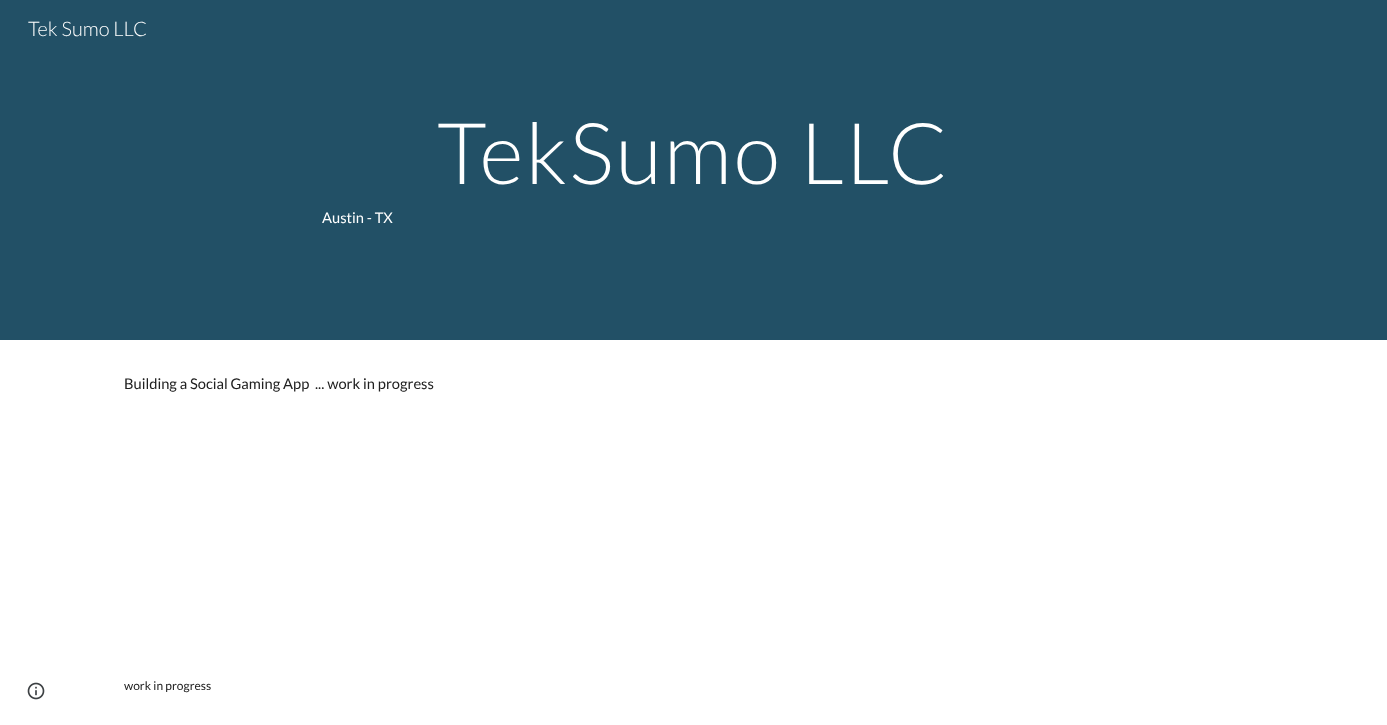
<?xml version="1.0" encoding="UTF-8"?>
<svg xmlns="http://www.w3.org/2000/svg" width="1387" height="725">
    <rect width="100%" height="100%" fill="#FFFFFF"/>
    <rect x="0" y="0" width="1387" height="340" fill="#225066"/>
    <text x="28" y="36" font-family="Lato" font-size="20" font-weight="300" fill="#FFFFFF">Tek Sumo LLC</text>
    <text x="437" y="184" font-family="Lato" font-size="85.25" font-weight="300" letter-spacing="2" fill="#FFFFFF">TekSumo LLC</text>
    <text x="322" y="223" font-family="Lato" font-size="14.7" fill="#FFFFFF">Austin - TX</text>
    <text x="124" y="389" font-family="Lato" font-size="14.7" fill="#212121" xml:space="preserve">Building a Social Gaming App  ... work in progress</text>
    <image x="27" y="682" width="18" height="18" href="img_01.png"/>
    <text x="124" y="690" font-family="Lato" font-size="12" fill="#212121">work in progress</text>
</svg>
